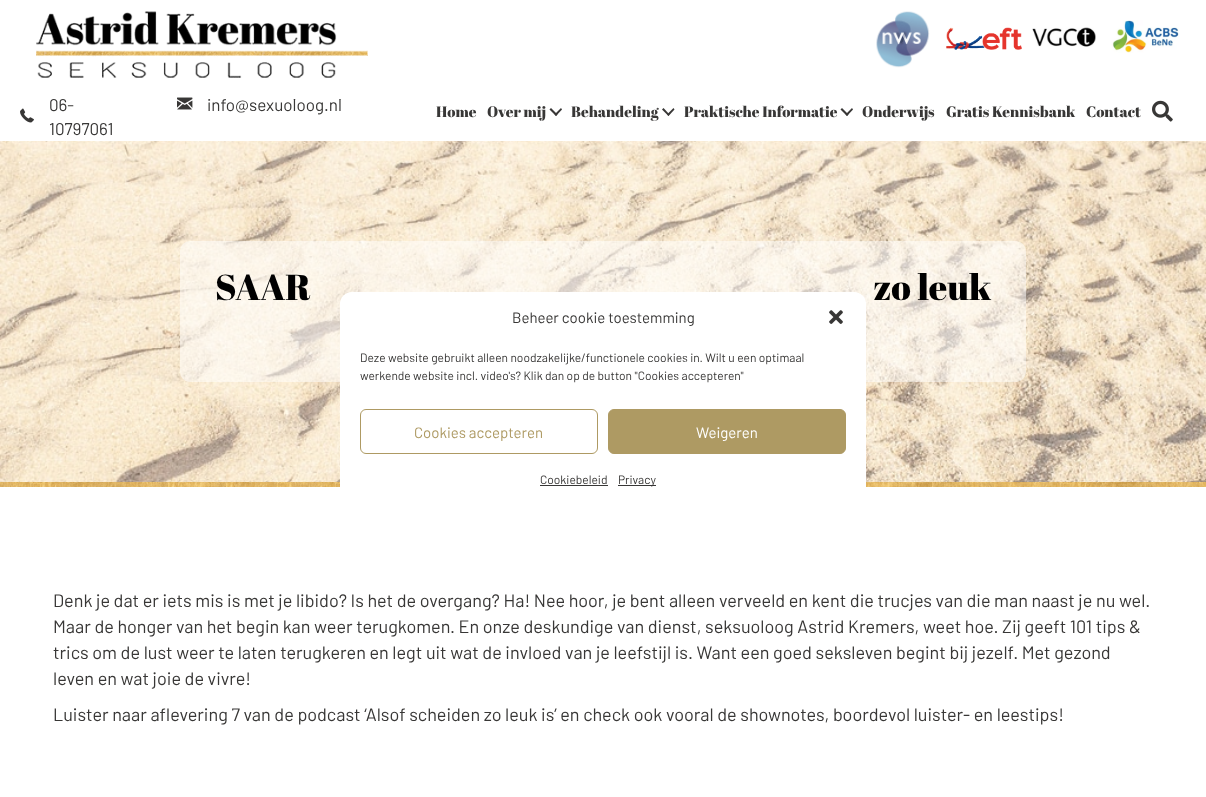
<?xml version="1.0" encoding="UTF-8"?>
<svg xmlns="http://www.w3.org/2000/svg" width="1206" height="797">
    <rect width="100%" height="100%" fill="#FFFFFF"/>
    <image x="36" y="11" width="332" height="67" href="img_01.png"/>
    <image x="876" y="11" width="54" height="57" href="img_02.png"/>
    <image x="946" y="27" width="76" height="23" href="img_03.png"/>
    <image x="1032" y="27" width="64" height="20" href="img_04.png"/>
    <image x="1111" y="20" width="68" height="33" href="img_05.png"/>
    <image x="20" y="108" width="14" height="15" href="img_06.png"/>
    <text font-family="Barlow" font-size="17" fill="#383736">
        <tspan x="49" y="111">06-</tspan>
        <tspan x="49" y="135">10797061</tspan>
    </text>
    <image x="177" y="97" width="16" height="13" href="img_07.png"/>
    <text x="207" y="111" font-family="Barlow" font-size="17" fill="#383736">info@sexuoloog.nl</text>
    <text x="436" y="117" font-family="Abril Fatface" font-size="15" fill="#383736">Home</text>
    <text x="487" y="117" font-family="Abril Fatface" font-size="15" fill="#383736">Over mij</text>
    <path d="M 561 108 L 562 109.5 L 556 116 L 554.5 114.5 Z" fill="#383736"/>
    <path d="M 551 108 L 557.5 114.5 L 556 116 L 549.5 109.5 Z" fill="#383736"/>
    <text x="571" y="117" font-family="Abril Fatface" font-size="15" fill="#383736">Behandeling</text>
    <path d="M 673.5 108 L 674.5 109.5 L 668.5 116 L 667 114.5 Z" fill="#383736"/>
    <path d="M 663.5 108 L 669.5 114.5 L 668.5 116 L 662 109.5 Z" fill="#383736"/>
    <text x="684" y="117" font-family="Abril Fatface" font-size="15" fill="#383736">Praktische Informatie</text>
    <path d="M 852 108 L 853 109.5 L 847 116 L 845.5 114.5 Z" fill="#383736"/>
    <path d="M 842 108 L 848.5 114.5 L 847 116 L 840.5 109.5 Z" fill="#383736"/>
    <text x="862" y="117" font-family="Abril Fatface" font-size="15" fill="#383736">Onderwijs</text>
    <text x="946" y="117" font-family="Abril Fatface" font-size="15" fill="#383736">Gratis Kennisbank</text>
    <text x="1086" y="117" font-family="Abril Fatface" font-size="15" fill="#383736">Contact</text>
    <image x="1152" y="100" width="21" height="22" href="img_08.png"/>
    <image x="0" y="141" width="1206" height="341" href="img_09.png"/>
    <rect x="180" y="241" width="846" height="141" rx="10" fill="#FFFFFF" fill-opacity="0.5"/>
    <text x="215" y="300" font-family="Abril Fatface" font-size="36" fill="#000000">SAAR</text>
    <text x="873" y="300" font-family="Abril Fatface" font-size="36" fill="#000000">zo leuk</text>
    <image x="0" y="482" width="1206" height="5" href="img_10.png"/>
    <text font-family="Barlow" font-size="18" fill="#383736">
        <tspan x="53" y="607">Denk je dat er iets mis is met je libido? Is het de overgang? Ha! Nee hoor, je bent alleen verveeld en kent die trucjes van die man naast je nu wel.</tspan>
        <tspan x="53" y="633">Maar de honger van het begin kan weer terugkomen. En onze deskundige van dienst, seksuoloog Astrid Kremers, weet hoe. Zij geeft 101 tips &amp;</tspan>
        <tspan x="53" y="659">trics om de lust weer te laten terugkeren en legt uit wat de invloed van je leefstijl is. Want een goed seksleven begint bij jezelf. Met gezond</tspan>
        <tspan x="53" y="685">leven en wat joie de vivre!</tspan>
    </text>
    <text x="53" y="721" font-family="Barlow" font-size="18" fill="#383736">Luister naar aflevering 7 van de podcast ‘Alsof scheiden zo leuk is’ en check ook vooral de shownotes, boordevol luister- en leestips!</text>
    <rect x="340" y="292" width="526" height="213" rx="12" fill="#FFFFFF"/>
    <text x="512" y="323" font-family="Barlow" font-size="15" fill="#383736">Beheer cookie toestemming</text>
    <image x="829" y="310" width="14" height="14" href="img_11.png"/>
    <text font-family="Barlow" font-size="12" fill="#383736">
        <tspan x="360" y="362">Deze website gebruikt alleen noodzakelijke/functionele cookies in. Wilt u een optimaal</tspan>
        <tspan x="360" y="380">werkende website incl. video's? Klik dan op de button "Cookies accepteren"</tspan>
    </text>
    <rect x="360.5" y="409.5" width="237" height="44" rx="5.5" fill="none" stroke="#AE9A63"/>
    <text x="414" y="438" font-family="Barlow" font-size="15" fill="#AE9A63">Cookies accepteren</text>
    <rect x="608.5" y="409.5" width="237" height="44" rx="5.5" fill="#AE9A63" stroke="#AE9A63"/>
    <text x="696" y="438" font-family="Barlow" font-size="15" fill="#FFFFFF">Weigeren</text>
    <text x="540" y="484" font-family="Barlow" font-size="12" fill="#383736">Cookiebeleid</text>
    <rect x="540" y="485" width="68" height="1" fill="#383736"/>
    <rect x="618" y="485" width="38" height="1" fill="#383736"/>
    <text x="618" y="484" font-family="Barlow" font-size="12" fill="#383736">Privacy</text>
</svg>
